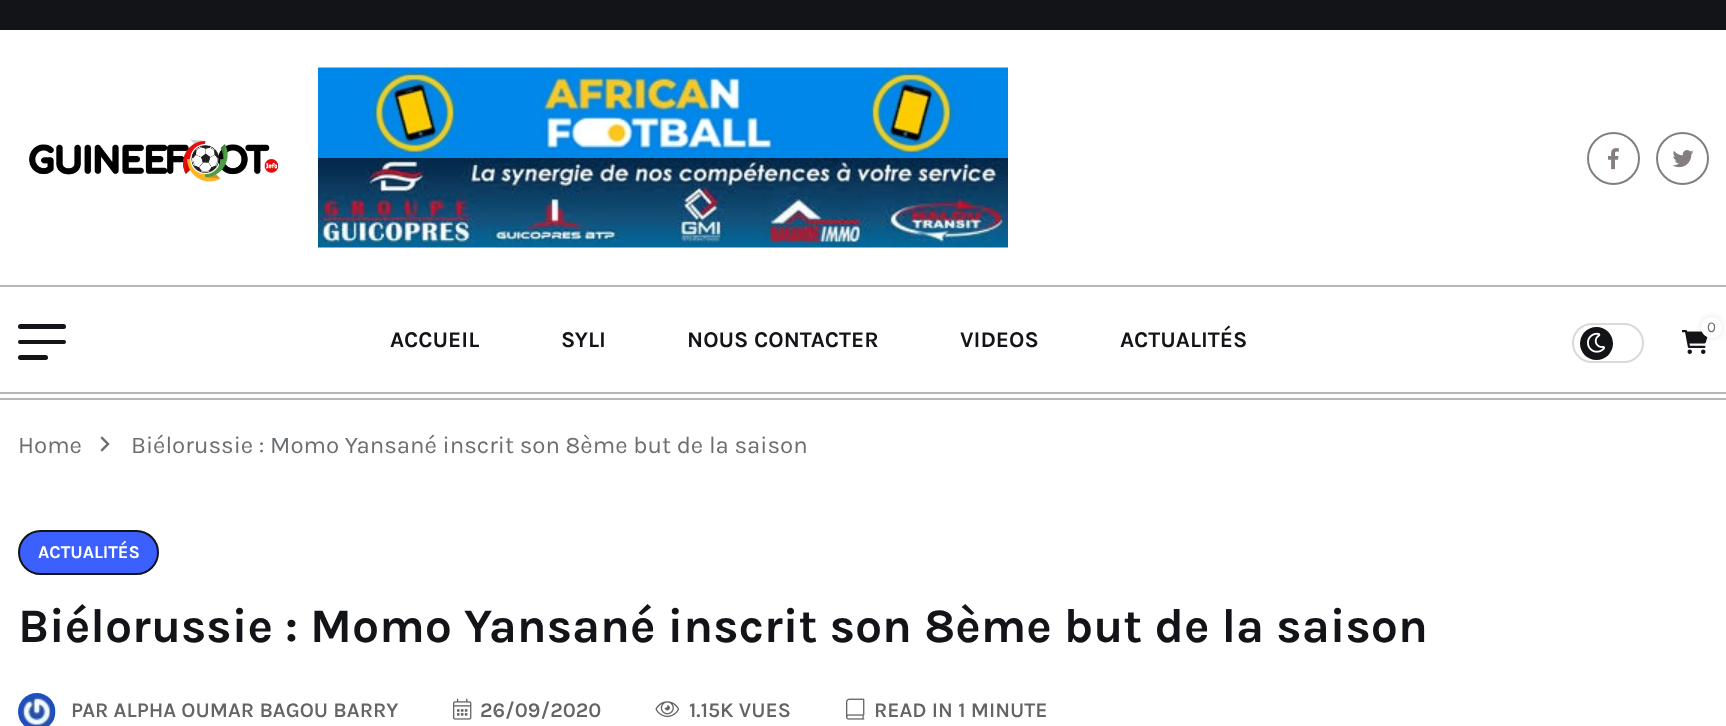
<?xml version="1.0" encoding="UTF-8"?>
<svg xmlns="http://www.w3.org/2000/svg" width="1726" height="726">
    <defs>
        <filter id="blur1" x="-50%" y="-200%" width="200%" height="500%"><feGaussianBlur stdDeviation="3"/></filter>
    </defs>
    <rect width="100%" height="100%" fill="#FFFFFF"/>
    <rect x="0" y="0" width="1726" height="30" fill="#121418"/>
    <rect x="0" y="285" width="1726" height="2" fill="#B7B7B7"/>
    <image x="29" y="139" width="250" height="43" href="img_01.png"/>
    <image x="318" y="67" width="690" height="91" href="img_02.png"/>
    <image x="318" y="157" width="690" height="91" href="img_03.png"/>
    <circle cx="1613.5" cy="158.5" r="25.5" fill="none" stroke="#847E7E" stroke-width="2"/>
    <image x="1608" y="148" width="11" height="22" href="img_04.png"/>
    <circle cx="1682.5" cy="158.5" r="25.5" fill="none" stroke="#847E7E" stroke-width="2"/>
    <image x="1672" y="150" width="22" height="18" href="img_05.png"/>
    <rect x="0" y="392" width="1726" height="2" fill="#B7B7B7"/>
    <rect x="18" y="324" width="48" height="5" rx="2.5" fill="#121418"/>
    <rect x="18" y="340" width="48" height="4" rx="2" fill="#121418"/>
    <rect x="18" y="355" width="30" height="5" rx="2.5" fill="#121418"/>
    <text x="390" y="347" font-family="Karla" font-size="22.5" font-weight="700" fill="#121418">ACCUEIL</text>
    <text x="561" y="347" font-family="Karla" font-size="22.5" font-weight="700" fill="#121418">SYLI</text>
    <text x="687" y="347" font-family="Karla" font-size="22.5" font-weight="700" fill="#121418">NOUS CONTACTER</text>
    <text x="960" y="347" font-family="Karla" font-size="22.5" font-weight="700" fill="#121418">VIDEOS</text>
    <text x="1120" y="347" font-family="Karla" font-size="22.5" font-weight="700" fill="#121418">ACTUALITÉS</text>
    <rect x="1573" y="324" width="70" height="38" rx="19" fill="none" stroke="#D9D9D9" stroke-width="2"/>
    <circle cx="1596.5" cy="343.5" r="16.5" fill="#121418"/>
    <image x="1587" y="332" width="18" height="21" href="img_06.png"/>
    <image x="1682" y="330" width="26" height="24" href="img_07.png"/>
    <rect x="1701" y="317" width="21" height="21" rx="10.5" fill="#000000" fill-opacity="0.1" filter="url(#blur1)"/>
    <circle cx="1711.5" cy="327.5" r="10.5" fill="#FFFFFF"/>
    <text x="1707" y="332" font-family="Karla" font-size="15" fill="#6C6F72">0</text>
    <rect x="0" y="398" width="1726" height="2" fill="#B7B7B7"/>
    <text x="18" y="453" font-family="Karla" font-size="24" fill="#6C6F72">Home</text>
    <image x="100" y="436" width="10" height="16" href="img_08.png"/>
    <text x="131" y="453" font-family="Karla" font-size="24" fill="#6C6F72">Biélorussie : Momo Yansané inscrit son 8ème but de la saison</text>
    <rect x="19" y="531" width="139" height="43" rx="21.5" fill="#3B60FE" stroke="#121418" stroke-width="2"/>
    <text x="38" y="558" font-family="Karla" font-size="18" font-weight="700" fill="#FFFFFF">ACTUALITÉS</text>
    <text x="18" y="642" font-family="Karla" font-size="48" font-weight="700" fill="#121418">Biélorussie : Momo Yansané inscrit son 8ème but de la saison</text>
    <image x="18" y="693" width="38" height="33" href="img_09.png"/>
    <text x="71" y="717" font-family="Karla" font-size="21" font-weight="600" fill="#646464">PAR ALPHA OUMAR BAGOU BARRY</text>
    <image x="453" y="698" width="19" height="22" href="img_10.png"/>
    <text x="480" y="717" font-family="Karla" font-size="21" font-weight="600" fill="#646464">26/09/2020</text>
    <image x="655" y="701" width="25" height="16" href="img_11.png"/>
    <text x="689" y="717" font-family="Karla" font-size="21" font-weight="600" fill="#646464">1.15K VUES</text>
    <image x="846" y="698" width="19" height="22" href="img_12.png"/>
    <text x="874" y="717" font-family="Karla" font-size="21" font-weight="600" fill="#646464">READ IN 1 MINUTE</text>
</svg>
